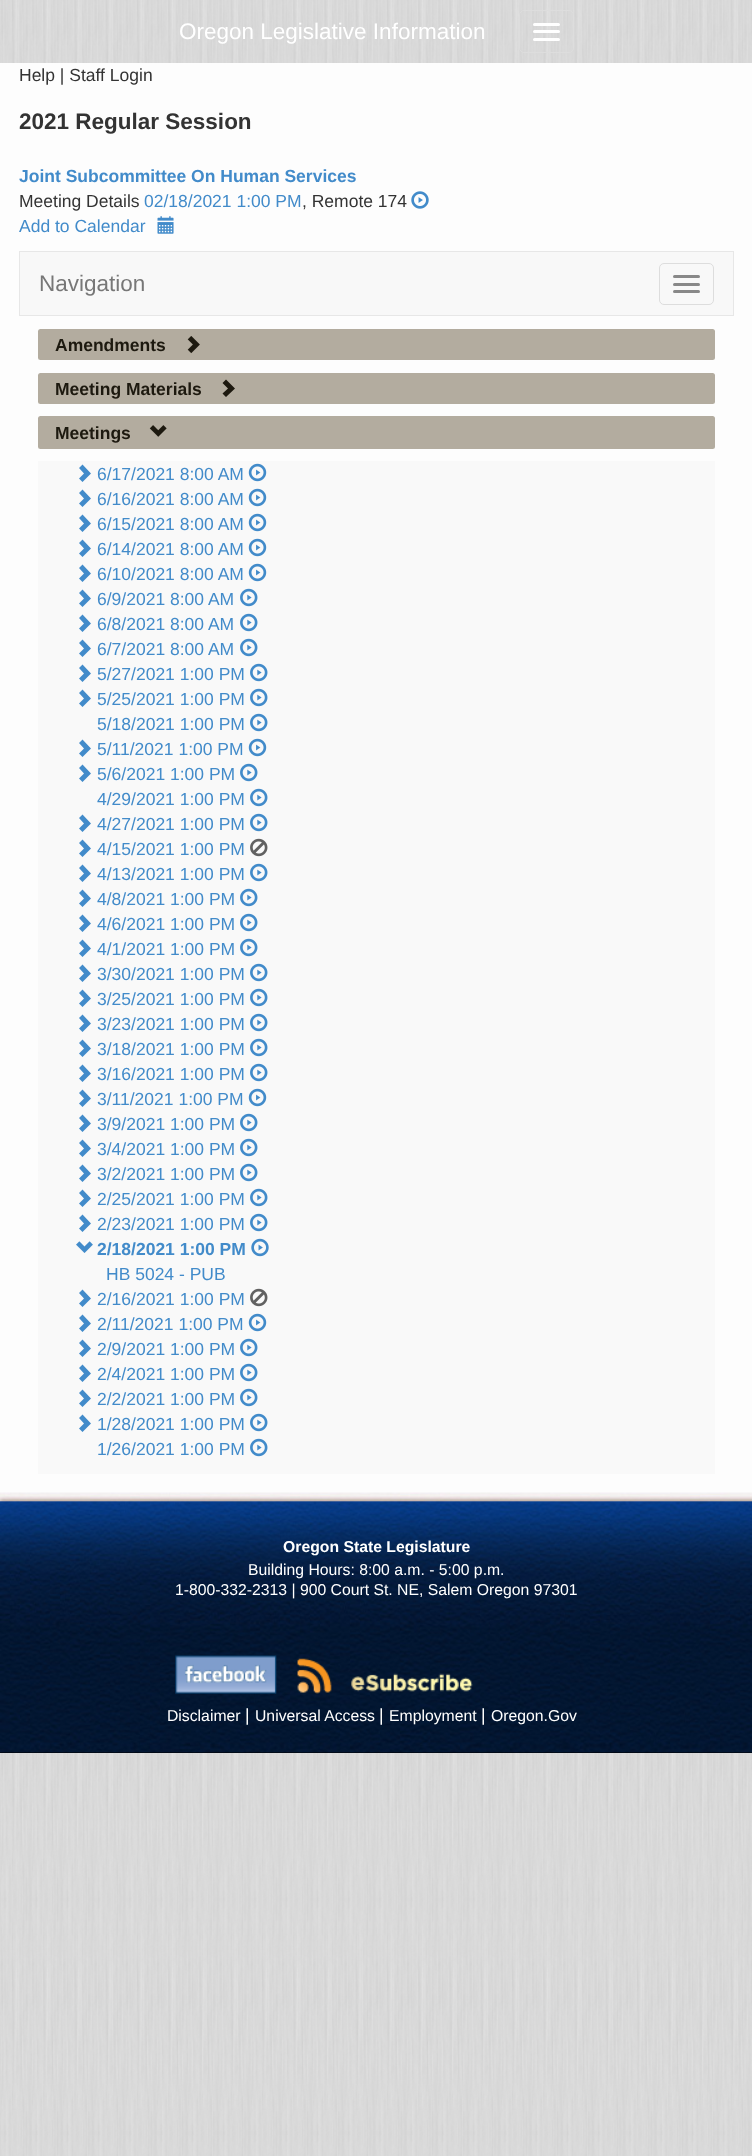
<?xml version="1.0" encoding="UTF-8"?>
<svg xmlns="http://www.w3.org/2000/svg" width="752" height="2156">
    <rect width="100%" height="100%" fill="#FFFFFF"/>
    <image x="0" y="0" width="752" height="2156" href="img_01.png"/>
    <text x="179" y="39" font-family="Liberation Sans" font-size="22.5" fill="#FFFFFF">Oregon Legislative Information</text>
    <rect x="519.5" y="10.5" width="54" height="42" rx="4.5" fill="none" stroke="#DDDDDD"/>
    <rect x="533" y="23" width="27" height="3" rx="1.5" fill="#FFFFFF"/>
    <rect x="533" y="30" width="27" height="3" rx="1.5" fill="#FFFFFF"/>
    <rect x="533" y="38" width="27" height="3" rx="1.5" fill="#FFFFFF"/>
    <rect x="0" y="63" width="752" height="1430" fill="#FDFDFD"/>
    <text x="19" y="81" font-family="Liberation Sans" font-size="17.5" fill="#333333">Help | Staff Login</text>
    <text x="19" y="129" font-family="Liberation Sans" font-size="22.5" font-weight="700" fill="#333333">2021 Regular Session</text>
    <text x="19" y="182" font-family="Liberation Sans" font-size="17.5" font-weight="700" fill="#428BCA">Joint Subcommittee On Human Services</text>
    <text x="19" y="207" font-family="Liberation Sans" font-size="17.5" fill="#333333">Meeting Details</text>
    <text x="144" y="207" font-family="Liberation Sans" font-size="17.5" fill="#428BCA">02/18/2021 1:00 PM</text>
    <text x="302" y="207" font-family="Liberation Sans" font-size="17.5" fill="#333333">, Remote 174</text>
    <image x="411" y="191" width="18" height="18" href="img_02.png"/>
    <text x="19" y="232" font-family="Liberation Sans" font-size="17.5" fill="#428BCA">Add to Calendar</text>
    <image x="157" y="216" width="17" height="18" href="img_03.png"/>
    <rect x="19.5" y="251.5" width="714" height="64" fill="#F8F8F8" stroke="#E7E7E7"/>
    <text x="39" y="291" font-family="Liberation Sans" font-size="22.5" fill="#777777">Navigation</text>
    <rect x="659.5" y="263.5" width="54" height="41" rx="4.5" fill="none" stroke="#DDDDDD"/>
    <rect x="673" y="275" width="27" height="3" rx="1.5" fill="#888888"/>
    <rect x="673" y="283" width="27" height="3" rx="1.5" fill="#888888"/>
    <rect x="673" y="290" width="27" height="3" rx="1.5" fill="#888888"/>
    <rect x="38" y="329" width="677" height="31" rx="2.5" fill="#B3AC9F"/>
    <text x="55" y="351" font-family="Liberation Sans" font-size="17.5" font-weight="700" fill="#1D190F">Amendments</text>
    <image x="187" y="336" width="13" height="18" href="img_04.png"/>
    <rect x="38" y="373" width="677" height="31" rx="2.5" fill="#B3AC9F"/>
    <text x="55" y="395" font-family="Liberation Sans" font-size="17.5" font-weight="700" fill="#1D190F">Meeting Materials</text>
    <path d="M 222.5 393.5 L 228 388.5 L 222.5 383 L 226 379.5 L 235 388.5 L 226 397 Z" fill="#1D190F"/>
    <rect x="38" y="416" width="677" height="33" rx="2.5" fill="#B3AC9F"/>
    <text x="55" y="439" font-family="Liberation Sans" font-size="17.5" font-weight="700" fill="#1D190F">Meetings</text>
    <image x="149" y="425" width="18" height="12" href="img_05.png"/>
    <rect x="38" y="461" width="677" height="1013" fill="#F9F9F9"/>
    <path d="M 79 478.5 L 84 473.5 L 79 468 L 82.5 464.5 L 91 473.5 L 82.5 482 Z" fill="#428BCA"/>
    <text x="97" y="480" font-family="Liberation Sans" font-size="17.5" fill="#428BCA">6/17/2021 8:00 AM</text>
    <image x="248" y="463" width="19" height="19" href="img_06.png"/>
    <path d="M 79 503.5 L 84 498.5 L 79 493 L 82.5 489.5 L 91 498.5 L 82.5 507 Z" fill="#428BCA"/>
    <text x="97" y="505" font-family="Liberation Sans" font-size="17.5" fill="#428BCA">6/16/2021 8:00 AM</text>
    <image x="248" y="488" width="19" height="19" href="img_06.png"/>
    <path d="M 79 528.5 L 84 523.5 L 79 518 L 82.5 514.5 L 91 523.5 L 82.5 532 Z" fill="#428BCA"/>
    <text x="97" y="530" font-family="Liberation Sans" font-size="17.5" fill="#428BCA">6/15/2021 8:00 AM</text>
    <image x="248" y="513" width="19" height="19" href="img_06.png"/>
    <path d="M 79 553.5 L 84 548.5 L 79 543 L 82.5 539.5 L 91 548.5 L 82.5 557 Z" fill="#428BCA"/>
    <text x="97" y="555" font-family="Liberation Sans" font-size="17.5" fill="#428BCA">6/14/2021 8:00 AM</text>
    <image x="248" y="538" width="19" height="19" href="img_06.png"/>
    <path d="M 79 578.5 L 84 573.5 L 79 568 L 82.5 564.5 L 91 573.5 L 82.5 582 Z" fill="#428BCA"/>
    <text x="97" y="580" font-family="Liberation Sans" font-size="17.5" fill="#428BCA">6/10/2021 8:00 AM</text>
    <image x="248" y="563" width="19" height="19" href="img_06.png"/>
    <path d="M 79 603.5 L 84 598.5 L 79 593 L 82.5 589.5 L 91 598.5 L 82.5 607 Z" fill="#428BCA"/>
    <text x="97" y="605" font-family="Liberation Sans" font-size="17.5" fill="#428BCA">6/9/2021 8:00 AM</text>
    <image x="240" y="588" width="18" height="19" href="img_07.png"/>
    <path d="M 79 628.5 L 84 623.5 L 79 618 L 82.5 614.5 L 91 623.5 L 82.5 632 Z" fill="#428BCA"/>
    <text x="97" y="630" font-family="Liberation Sans" font-size="17.5" fill="#428BCA">6/8/2021 8:00 AM</text>
    <image x="240" y="613" width="18" height="19" href="img_07.png"/>
    <path d="M 79 653.5 L 84 648.5 L 79 643 L 82.5 639.5 L 91 648.5 L 82.5 657 Z" fill="#428BCA"/>
    <text x="97" y="655" font-family="Liberation Sans" font-size="17.5" fill="#428BCA">6/7/2021 8:00 AM</text>
    <image x="240" y="638" width="18" height="19" href="img_07.png"/>
    <path d="M 79 678.5 L 84 673.5 L 79 668 L 82.5 664.5 L 91 673.5 L 82.5 682 Z" fill="#428BCA"/>
    <text x="97" y="680" font-family="Liberation Sans" font-size="17.5" fill="#428BCA">5/27/2021 1:00 PM</text>
    <image x="250" y="663" width="18" height="19" href="img_07.png"/>
    <path d="M 79 703.5 L 84 698.5 L 79 693 L 82.5 689.5 L 91 698.5 L 82.5 707 Z" fill="#428BCA"/>
    <text x="97" y="705" font-family="Liberation Sans" font-size="17.5" fill="#428BCA">5/25/2021 1:00 PM</text>
    <image x="250" y="688" width="18" height="19" href="img_07.png"/>
    <text x="97" y="730" font-family="Liberation Sans" font-size="17.5" fill="#428BCA">5/18/2021 1:00 PM</text>
    <image x="250" y="713" width="18" height="19" href="img_07.png"/>
    <path d="M 79 753.5 L 84 748.5 L 79 743 L 82.5 739.5 L 91 748.5 L 82.5 757 Z" fill="#428BCA"/>
    <text x="97" y="755" font-family="Liberation Sans" font-size="17.5" fill="#428BCA">5/11/2021 1:00 PM</text>
    <image x="248" y="738" width="19" height="19" href="img_06.png"/>
    <path d="M 79 778.5 L 84 773.5 L 79 768 L 82.5 764.5 L 91 773.5 L 82.5 782 Z" fill="#428BCA"/>
    <text x="97" y="780" font-family="Liberation Sans" font-size="17.5" fill="#428BCA">5/6/2021 1:00 PM</text>
    <image x="240" y="763" width="18" height="19" href="img_07.png"/>
    <text x="97" y="805" font-family="Liberation Sans" font-size="17.5" fill="#428BCA">4/29/2021 1:00 PM</text>
    <image x="250" y="788" width="18" height="19" href="img_07.png"/>
    <path d="M 79 828.5 L 84 823.5 L 79 818 L 82.5 814.5 L 91 823.5 L 82.5 832 Z" fill="#428BCA"/>
    <text x="97" y="830" font-family="Liberation Sans" font-size="17.5" fill="#428BCA">4/27/2021 1:00 PM</text>
    <image x="250" y="813" width="18" height="19" href="img_07.png"/>
    <path d="M 79 853.5 L 84 848.5 L 79 843 L 82.5 839.5 L 91 848.5 L 82.5 857 Z" fill="#428BCA"/>
    <text x="97" y="855" font-family="Liberation Sans" font-size="17.5" fill="#428BCA">4/15/2021 1:00 PM</text>
    <image x="250" y="838" width="18" height="19" href="img_08.png"/>
    <path d="M 79 878.5 L 84 873.5 L 79 868 L 82.5 864.5 L 91 873.5 L 82.5 882 Z" fill="#428BCA"/>
    <text x="97" y="880" font-family="Liberation Sans" font-size="17.5" fill="#428BCA">4/13/2021 1:00 PM</text>
    <image x="250" y="863" width="18" height="19" href="img_07.png"/>
    <path d="M 79 903.5 L 84 898.5 L 79 893 L 82.5 889.5 L 91 898.5 L 82.5 907 Z" fill="#428BCA"/>
    <text x="97" y="905" font-family="Liberation Sans" font-size="17.5" fill="#428BCA">4/8/2021 1:00 PM</text>
    <image x="240" y="888" width="18" height="19" href="img_07.png"/>
    <path d="M 79 928.5 L 84 923.5 L 79 918 L 82.5 914.5 L 91 923.5 L 82.5 932 Z" fill="#428BCA"/>
    <text x="97" y="930" font-family="Liberation Sans" font-size="17.5" fill="#428BCA">4/6/2021 1:00 PM</text>
    <image x="240" y="913" width="18" height="19" href="img_07.png"/>
    <path d="M 79 953.5 L 84 948.5 L 79 943 L 82.5 939.5 L 91 948.5 L 82.5 957 Z" fill="#428BCA"/>
    <text x="97" y="955" font-family="Liberation Sans" font-size="17.5" fill="#428BCA">4/1/2021 1:00 PM</text>
    <image x="240" y="938" width="18" height="19" href="img_07.png"/>
    <path d="M 79 978.5 L 84 973.5 L 79 968 L 82.5 964.5 L 91 973.5 L 82.5 982 Z" fill="#428BCA"/>
    <text x="97" y="980" font-family="Liberation Sans" font-size="17.5" fill="#428BCA">3/30/2021 1:00 PM</text>
    <image x="250" y="963" width="18" height="19" href="img_07.png"/>
    <path d="M 79 1003.5 L 84 998.5 L 79 993 L 82.5 989.5 L 91 998.5 L 82.5 1007 Z" fill="#428BCA"/>
    <text x="97" y="1005" font-family="Liberation Sans" font-size="17.5" fill="#428BCA">3/25/2021 1:00 PM</text>
    <image x="250" y="988" width="18" height="19" href="img_07.png"/>
    <path d="M 79 1028.5 L 84 1023.5 L 79 1018 L 82.5 1014.5 L 91 1023.5 L 82.5 1032 Z" fill="#428BCA"/>
    <text x="97" y="1030" font-family="Liberation Sans" font-size="17.5" fill="#428BCA">3/23/2021 1:00 PM</text>
    <image x="250" y="1013" width="18" height="19" href="img_07.png"/>
    <path d="M 79 1053.5 L 84 1048.5 L 79 1043 L 82.5 1039.5 L 91 1048.5 L 82.5 1057 Z" fill="#428BCA"/>
    <text x="97" y="1055" font-family="Liberation Sans" font-size="17.5" fill="#428BCA">3/18/2021 1:00 PM</text>
    <image x="250" y="1038" width="18" height="19" href="img_07.png"/>
    <path d="M 79 1078.5 L 84 1073.5 L 79 1068 L 82.5 1064.5 L 91 1073.5 L 82.5 1082 Z" fill="#428BCA"/>
    <text x="97" y="1080" font-family="Liberation Sans" font-size="17.5" fill="#428BCA">3/16/2021 1:00 PM</text>
    <image x="250" y="1063" width="18" height="19" href="img_07.png"/>
    <path d="M 79 1103.5 L 84 1098.5 L 79 1093 L 82.5 1089.5 L 91 1098.5 L 82.5 1107 Z" fill="#428BCA"/>
    <text x="97" y="1105" font-family="Liberation Sans" font-size="17.5" fill="#428BCA">3/11/2021 1:00 PM</text>
    <image x="248" y="1088" width="19" height="19" href="img_06.png"/>
    <path d="M 79 1128.5 L 84 1123.5 L 79 1118 L 82.5 1114.5 L 91 1123.5 L 82.5 1132 Z" fill="#428BCA"/>
    <text x="97" y="1130" font-family="Liberation Sans" font-size="17.5" fill="#428BCA">3/9/2021 1:00 PM</text>
    <image x="240" y="1113" width="18" height="19" href="img_07.png"/>
    <path d="M 79 1153.5 L 84 1148.5 L 79 1143 L 82.5 1139.5 L 91 1148.5 L 82.5 1157 Z" fill="#428BCA"/>
    <text x="97" y="1155" font-family="Liberation Sans" font-size="17.5" fill="#428BCA">3/4/2021 1:00 PM</text>
    <image x="240" y="1138" width="18" height="19" href="img_07.png"/>
    <path d="M 79 1178.5 L 84 1173.5 L 79 1168 L 82.5 1164.5 L 91 1173.5 L 82.5 1182 Z" fill="#428BCA"/>
    <text x="97" y="1180" font-family="Liberation Sans" font-size="17.5" fill="#428BCA">3/2/2021 1:00 PM</text>
    <image x="240" y="1163" width="18" height="19" href="img_07.png"/>
    <path d="M 79 1203.5 L 84 1198.5 L 79 1193 L 82.5 1189.5 L 91 1198.5 L 82.5 1207 Z" fill="#428BCA"/>
    <text x="97" y="1205" font-family="Liberation Sans" font-size="17.5" fill="#428BCA">2/25/2021 1:00 PM</text>
    <image x="250" y="1188" width="18" height="19" href="img_07.png"/>
    <path d="M 79 1228.5 L 84 1223.5 L 79 1218 L 82.5 1214.5 L 91 1223.5 L 82.5 1232 Z" fill="#428BCA"/>
    <text x="97" y="1230" font-family="Liberation Sans" font-size="17.5" fill="#428BCA">2/23/2021 1:00 PM</text>
    <image x="250" y="1213" width="18" height="19" href="img_07.png"/>
    <image x="76" y="1241" width="17" height="12" href="img_09.png"/>
    <text x="97" y="1255" font-family="Liberation Sans" font-size="17.5" font-weight="700" fill="#428BCA">2/18/2021 1:00 PM</text>
    <image x="251" y="1238" width="18" height="19" href="img_10.png"/>
    <text x="106" y="1280" font-family="Liberation Sans" font-size="17.5" fill="#428BCA">HB 5024 - PUB</text>
    <path d="M 79 1303.5 L 84 1298.5 L 79 1293 L 82.5 1289.5 L 91 1298.5 L 82.5 1307 Z" fill="#428BCA"/>
    <text x="97" y="1305" font-family="Liberation Sans" font-size="17.5" fill="#428BCA">2/16/2021 1:00 PM</text>
    <image x="250" y="1288" width="18" height="19" href="img_08.png"/>
    <path d="M 79 1328.5 L 84 1323.5 L 79 1318 L 82.5 1314.5 L 91 1323.5 L 82.5 1332 Z" fill="#428BCA"/>
    <text x="97" y="1330" font-family="Liberation Sans" font-size="17.5" fill="#428BCA">2/11/2021 1:00 PM</text>
    <image x="248" y="1313" width="19" height="19" href="img_06.png"/>
    <path d="M 79 1353.5 L 84 1348.5 L 79 1343 L 82.5 1339.5 L 91 1348.5 L 82.5 1357 Z" fill="#428BCA"/>
    <text x="97" y="1355" font-family="Liberation Sans" font-size="17.5" fill="#428BCA">2/9/2021 1:00 PM</text>
    <image x="240" y="1338" width="18" height="19" href="img_07.png"/>
    <path d="M 79 1378.5 L 84 1373.5 L 79 1368 L 82.5 1364.5 L 91 1373.5 L 82.5 1382 Z" fill="#428BCA"/>
    <text x="97" y="1380" font-family="Liberation Sans" font-size="17.5" fill="#428BCA">2/4/2021 1:00 PM</text>
    <image x="240" y="1363" width="18" height="19" href="img_07.png"/>
    <path d="M 79 1403.5 L 84 1398.5 L 79 1393 L 82.5 1389.5 L 91 1398.5 L 82.5 1407 Z" fill="#428BCA"/>
    <text x="97" y="1405" font-family="Liberation Sans" font-size="17.5" fill="#428BCA">2/2/2021 1:00 PM</text>
    <image x="240" y="1388" width="18" height="19" href="img_07.png"/>
    <path d="M 79 1428.5 L 84 1423.5 L 79 1418 L 82.5 1414.5 L 91 1423.5 L 82.5 1432 Z" fill="#428BCA"/>
    <text x="97" y="1430" font-family="Liberation Sans" font-size="17.5" fill="#428BCA">1/28/2021 1:00 PM</text>
    <image x="250" y="1413" width="18" height="19" href="img_07.png"/>
    <text x="97" y="1455" font-family="Liberation Sans" font-size="17.5" fill="#428BCA">1/26/2021 1:00 PM</text>
    <image x="250" y="1438" width="18" height="19" href="img_07.png"/>
    <rect x="0" y="1752" width="752" height="1" fill="#000000"/>
    <image x="0" y="1492" width="752" height="261" href="img_11.png"/>
    <text x="283" y="1552" font-family="Liberation Sans" font-size="15.75" font-weight="700" fill="#FFFFFF">Oregon State Legislature</text>
    <text x="248" y="1575" font-family="Liberation Sans" font-size="15.75" fill="#FFFFFF">Building Hours: 8:00 a.m. - 5:00 p.m.</text>
    <text x="175" y="1595" font-family="Liberation Sans" font-size="15.75" fill="#FFFFFF">1-800-332-2313 | 900 Court St. NE, Salem Oregon 97301</text>
    <image x="175" y="1655" width="102" height="39" href="img_12.png"/>
    <image x="297" y="1658" width="35" height="36" href="img_13.png"/>
    <image x="351" y="1673" width="122" height="19" href="img_14.png"/>
    <text x="167" y="1721" font-family="Liberation Sans" font-size="15.75" fill="#FFFFFF">Disclaimer</text>
    <text x="245" y="1721" font-family="Liberation Sans" font-size="17.5" fill="#FFFFFF">|</text>
    <text x="255" y="1721" font-family="Liberation Sans" font-size="15.75" fill="#FFFFFF">Universal Access</text>
    <text x="379" y="1721" font-family="Liberation Sans" font-size="17.5" fill="#FFFFFF">|</text>
    <text x="389" y="1721" font-family="Liberation Sans" font-size="15.75" fill="#FFFFFF">Employment</text>
    <text x="481" y="1721" font-family="Liberation Sans" font-size="17.5" fill="#FFFFFF">|</text>
    <text x="491" y="1721" font-family="Liberation Sans" font-size="15.75" fill="#FFFFFF">Oregon.Gov</text>
</svg>
